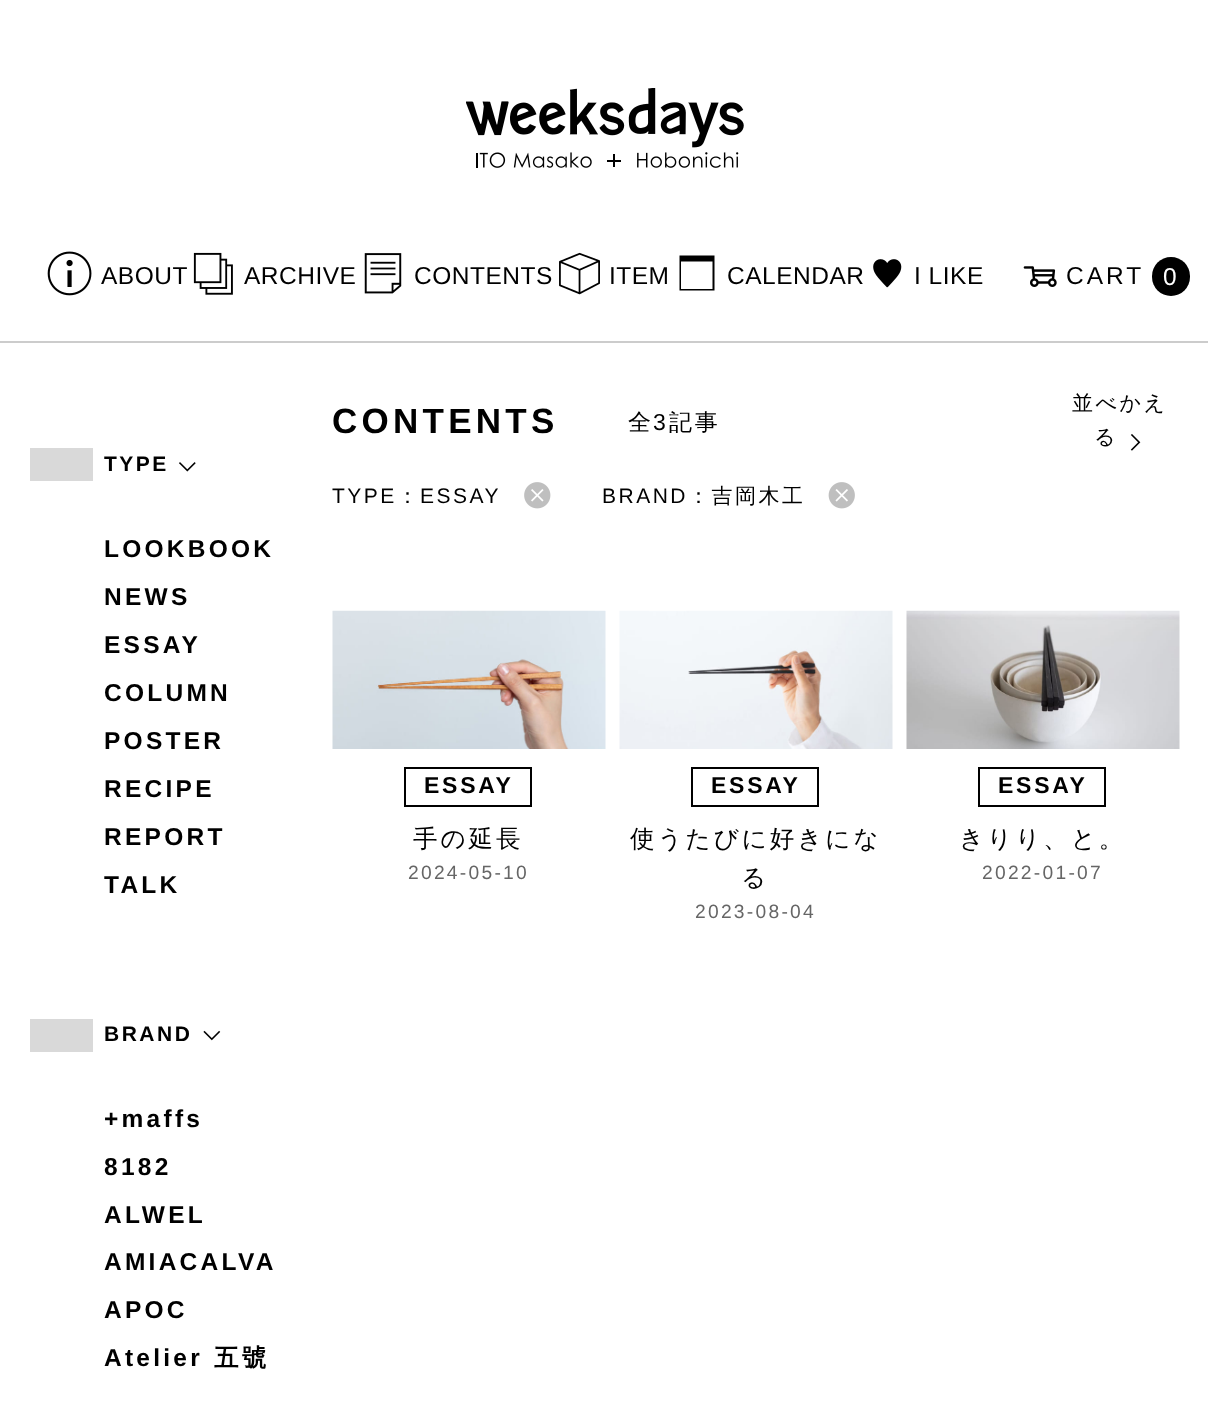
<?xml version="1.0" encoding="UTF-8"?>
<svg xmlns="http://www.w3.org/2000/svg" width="1208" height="1408">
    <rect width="100%" height="100%" fill="#FFFFFF"/>
    <rect x="0" y="341" width="1208" height="2" fill="#CCCCCC"/>
    <image x="466" y="88" width="278" height="80" href="img_01.png"/>
    <image x="47" y="251" width="45" height="45" href="img_02.png"/>
    <text x="101" y="284" font-family="Liberation Sans" font-size="24.5" letter-spacing="0.5" fill="#000000">ABOUT</text>
    <image x="193" y="252" width="40" height="43" href="img_03.png"/>
    <text x="244" y="284" font-family="Liberation Sans" font-size="24.5" letter-spacing="0.5" fill="#000000">ARCHIVE</text>
    <image x="364" y="253" width="38" height="41" href="img_04.png"/>
    <text x="414" y="284" font-family="Liberation Sans" font-size="24.5" letter-spacing="0.5" fill="#000000">CONTENTS</text>
    <image x="559" y="252" width="41" height="43" href="img_05.png"/>
    <text x="609" y="284" font-family="Liberation Sans" font-size="24.5" letter-spacing="0.5" fill="#000000">ITEM</text>
    <path d="M 679.5 255.5 V 290.5 H 714.5 V 255.5 Z M 681 289 V 261.5 H 712.5 V 289 Z" fill="#000000"/>
    <text x="727" y="284" font-family="Liberation Sans" font-size="24.5" letter-spacing="0.5" fill="#000000">CALENDAR</text>
    <image x="873" y="259" width="29" height="29" href="img_06.png"/>
    <text x="914" y="284" font-family="Liberation Sans" font-size="24.5" letter-spacing="0.5" fill="#000000">I LIKE</text>
    <image x="1023" y="266" width="34" height="21" href="img_07.png"/>
    <text x="1066" y="284" font-family="Liberation Sans" font-size="24.5" letter-spacing="3" fill="#000000">CART</text>
    <rect x="1152" y="257" width="38" height="39" rx="19" fill="#000000"/>
    <text x="1163" y="285" font-family="Liberation Sans" font-size="24.5" letter-spacing="3" fill="#FFFFFF">0</text>
    <rect x="30" y="448" width="63" height="33" fill="#D9D9D9"/>
    <text x="104" y="471" font-family="Liberation Sans" font-size="21" font-weight="700" letter-spacing="2.5" fill="#000000">TYPE</text>
    <image x="179" y="462" width="17" height="10" href="img_08.png"/>
    <text font-family="Liberation Sans" font-size="24.5" font-weight="700" letter-spacing="3.25" fill="#000000">
        <tspan x="104" y="557">LOOKBOOK</tspan>
        <tspan x="104" y="605">NEWS</tspan>
        <tspan x="104" y="653">ESSAY</tspan>
        <tspan x="104" y="701">COLUMN</tspan>
        <tspan x="104" y="749">POSTER</tspan>
        <tspan x="104" y="797">RECIPE</tspan>
        <tspan x="104" y="845">REPORT</tspan>
        <tspan x="104" y="893">TALK</tspan>
    </text>
    <rect x="30" y="1019" width="63" height="33" fill="#D9D9D9"/>
    <text x="104" y="1041" font-family="Liberation Sans" font-size="21" font-weight="700" letter-spacing="2.5" fill="#000000">BRAND</text>
    <image x="203" y="1030" width="18" height="11" href="img_09.png"/>
    <text font-family="Liberation Sans" font-size="24.5" font-weight="700" letter-spacing="3.25" fill="#000000">
        <tspan x="104" y="1127">+maffs</tspan>
        <tspan x="104" y="1175">8182</tspan>
        <tspan x="104" y="1223">ALWEL</tspan>
        <tspan x="104" y="1270">AMIACALVA</tspan>
        <tspan x="104" y="1318">APOC</tspan>
        <tspan x="104" y="1366">Atelier</tspan>
    </text>
    <text x="214" y="1366" font-family="WenQuanYi Zen Hei" font-size="24.5" font-weight="700" letter-spacing="3.25" fill="#000000">五號</text>
    <text x="332" y="433" font-family="Liberation Sans" font-size="35" font-weight="700" letter-spacing="4.25" fill="#000000">CONTENTS</text>
    <text x="628" y="430" font-family="WenQuanYi Zen Hei" font-size="23" font-weight="500" letter-spacing="2.75" fill="#000000">全</text>
    <text x="653" y="430" font-family="Liberation Sans" font-size="23" letter-spacing="2.75" fill="#000000">3</text>
    <text x="669" y="430" font-family="WenQuanYi Zen Hei" font-size="23" font-weight="500" letter-spacing="2.75" fill="#000000">記事</text>
    <text x="1072" y="410" font-family="WenQuanYi Zen Hei" font-size="21" font-weight="500" letter-spacing="2.5" fill="#000000">並べかえ</text>
    <text x="1094" y="444" font-family="WenQuanYi Zen Hei" font-size="21" font-weight="500" letter-spacing="2.5" fill="#000000">る</text>
    <image x="1130" y="434" width="11" height="17" href="img_10.png"/>
    <text x="332" y="503" font-family="Liberation Sans" font-size="21" letter-spacing="2.5" fill="#000000">TYPE</text>
    <text x="397" y="503" font-family="WenQuanYi Zen Hei" font-size="21" font-weight="500" letter-spacing="2.5" fill="#000000">：</text>
    <text x="420" y="503" font-family="Liberation Sans" font-size="21" letter-spacing="2.5" fill="#000000">ESSAY</text>
    <image x="524" y="482" width="27" height="27" href="img_11.png"/>
    <text x="602" y="503" font-family="Liberation Sans" font-size="21" letter-spacing="2.5" fill="#000000">BRAND</text>
    <text x="688" y="503" font-family="WenQuanYi Zen Hei" font-size="21" font-weight="500" letter-spacing="2.5" fill="#000000">：吉岡木工</text>
    <image x="828" y="482" width="27" height="27" href="img_12.png"/>
    <image x="332" y="610" width="274" height="139" href="img_13.png"/>
    <rect x="405" y="768" width="126" height="38" fill="none" stroke="#000000" stroke-width="2"/>
    <text x="424" y="793" font-family="Liberation Sans" font-size="23" font-weight="700" letter-spacing="2.75" fill="#000000">ESSAY</text>
    <text x="413" y="847" font-family="WenQuanYi Zen Hei" font-size="24.5" font-weight="500" letter-spacing="3" fill="#000000">手の延長</text>
    <text x="408" y="879" font-family="Liberation Sans" font-size="19.25" letter-spacing="2.25" fill="#666666">2024-05-10</text>
    <image x="619" y="610" width="274" height="139" href="img_14.png"/>
    <rect x="692" y="768" width="126" height="38" fill="none" stroke="#000000" stroke-width="2"/>
    <text x="711" y="793" font-family="Liberation Sans" font-size="23" font-weight="700" letter-spacing="2.75" fill="#000000">ESSAY</text>
    <text x="630" y="847" font-family="WenQuanYi Zen Hei" font-size="24.5" font-weight="500" letter-spacing="3" fill="#000000">使うたびに好きにな</text>
    <text x="741" y="886" font-family="WenQuanYi Zen Hei" font-size="24.5" font-weight="500" letter-spacing="3" fill="#000000">る</text>
    <text x="695" y="918" font-family="Liberation Sans" font-size="19.25" letter-spacing="2.25" fill="#666666">2023-08-04</text>
    <image x="906" y="610" width="274" height="139" href="img_15.png"/>
    <rect x="979" y="768" width="126" height="38" fill="none" stroke="#000000" stroke-width="2"/>
    <text x="998" y="793" font-family="Liberation Sans" font-size="23" font-weight="700" letter-spacing="2.75" fill="#000000">ESSAY</text>
    <text x="959" y="847" font-family="WenQuanYi Zen Hei" font-size="24.5" font-weight="500" letter-spacing="3" fill="#000000">きりり、と。</text>
    <text x="982" y="879" font-family="Liberation Sans" font-size="19.25" letter-spacing="2.25" fill="#666666">2022-01-07</text>
</svg>
